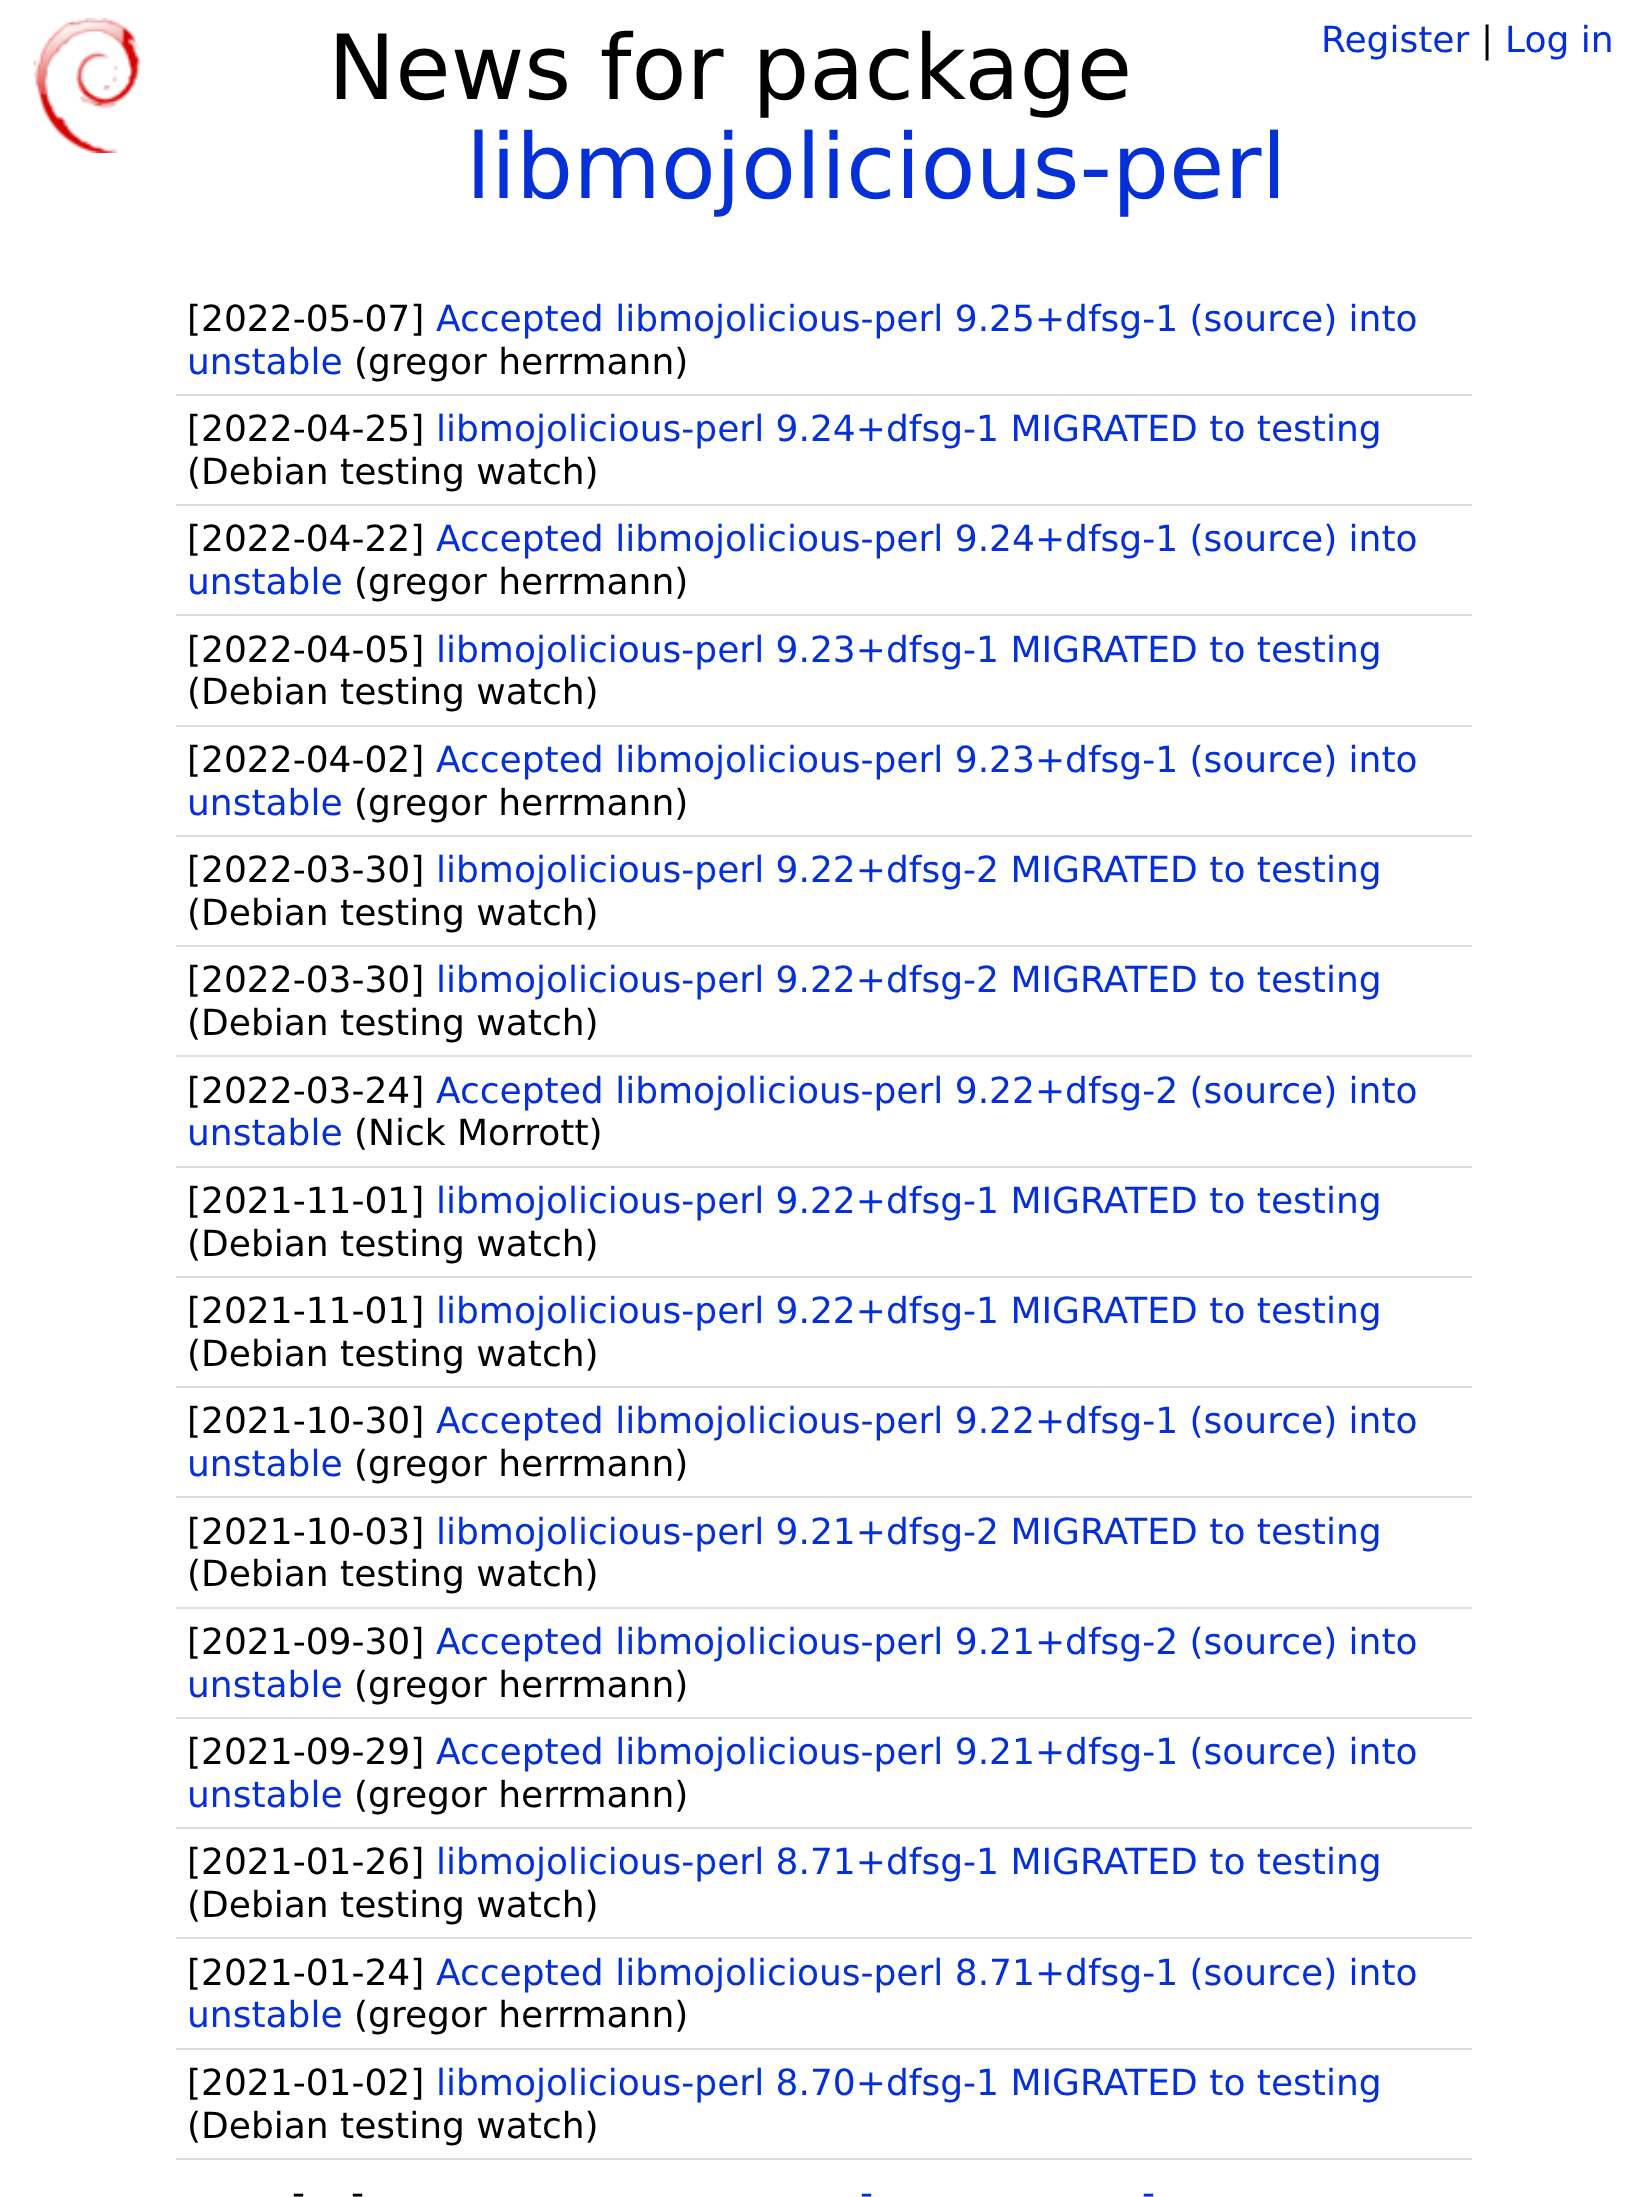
<?xml version="1.0" encoding="UTF-8"?>
<svg xmlns="http://www.w3.org/2000/svg" width="1647" height="2197">
    <rect width="100%" height="100%" fill="#FFFFFF"/>
    <image x="33" y="18" width="107" height="135" href="img_01.png"/>
    <text x="328" y="99" font-family="DejaVu Sans" font-size="90" fill="#000000">News for package</text>
    <text x="466" y="198" font-family="DejaVu Sans" font-size="90" fill="#0530D7">libmojolicious-perl</text>
    <text x="1321" y="52" font-family="DejaVu Sans" font-size="36" fill="#0530D7">Register</text>
    <text x="1481" y="52" font-family="DejaVu Sans" font-size="36" fill="#000000">|</text>
    <text x="1505" y="52" font-family="DejaVu Sans" font-size="36" fill="#0530D7">Log in</text>
    <rect x="176" y="394" width="1296" height="2" fill="#DDDDDD"/>
    <text x="187" y="331" font-family="DejaVu Sans" font-size="36" fill="#000000">[2022-05-07]</text>
    <text x="436" y="331" font-family="DejaVu Sans" font-size="36" fill="#0530D7">Accepted libmojolicious-perl 9.25+dfsg-1 (source) into</text>
    <text x="187" y="374" font-family="DejaVu Sans" font-size="36" fill="#0530D7">unstable</text>
    <text x="354" y="374" font-family="DejaVu Sans" font-size="36" fill="#000000">(gregor herrmann)</text>
    <rect x="176" y="504" width="1296" height="2" fill="#DDDDDD"/>
    <text x="187" y="441" font-family="DejaVu Sans" font-size="36" fill="#000000">[2022-04-25]</text>
    <text x="436" y="441" font-family="DejaVu Sans" font-size="36" fill="#0530D7">libmojolicious-perl 9.24+dfsg-1 MIGRATED to testing</text>
    <text x="187" y="484" font-family="DejaVu Sans" font-size="36" fill="#000000">(Debian testing watch)</text>
    <rect x="176" y="614" width="1296" height="2" fill="#DDDDDD"/>
    <text x="187" y="551" font-family="DejaVu Sans" font-size="36" fill="#000000">[2022-04-22]</text>
    <text x="436" y="551" font-family="DejaVu Sans" font-size="36" fill="#0530D7">Accepted libmojolicious-perl 9.24+dfsg-1 (source) into</text>
    <text x="187" y="594" font-family="DejaVu Sans" font-size="36" fill="#0530D7">unstable</text>
    <text x="354" y="594" font-family="DejaVu Sans" font-size="36" fill="#000000">(gregor herrmann)</text>
    <rect x="176" y="725" width="1296" height="2" fill="#DDDDDD"/>
    <text x="187" y="662" font-family="DejaVu Sans" font-size="36" fill="#000000">[2022-04-05]</text>
    <text x="436" y="662" font-family="DejaVu Sans" font-size="36" fill="#0530D7">libmojolicious-perl 9.23+dfsg-1 MIGRATED to testing</text>
    <text x="187" y="704" font-family="DejaVu Sans" font-size="36" fill="#000000">(Debian testing watch)</text>
    <rect x="176" y="835" width="1296" height="2" fill="#DDDDDD"/>
    <text x="187" y="772" font-family="DejaVu Sans" font-size="36" fill="#000000">[2022-04-02]</text>
    <text x="436" y="772" font-family="DejaVu Sans" font-size="36" fill="#0530D7">Accepted libmojolicious-perl 9.23+dfsg-1 (source) into</text>
    <text x="187" y="815" font-family="DejaVu Sans" font-size="36" fill="#0530D7">unstable</text>
    <text x="354" y="815" font-family="DejaVu Sans" font-size="36" fill="#000000">(gregor herrmann)</text>
    <rect x="176" y="945" width="1296" height="2" fill="#DDDDDD"/>
    <text x="187" y="882" font-family="DejaVu Sans" font-size="36" fill="#000000">[2022-03-30]</text>
    <text x="436" y="882" font-family="DejaVu Sans" font-size="36" fill="#0530D7">libmojolicious-perl 9.22+dfsg-2 MIGRATED to testing</text>
    <text x="187" y="925" font-family="DejaVu Sans" font-size="36" fill="#000000">(Debian testing watch)</text>
    <rect x="176" y="1055" width="1296" height="2" fill="#DDDDDD"/>
    <text x="187" y="992" font-family="DejaVu Sans" font-size="36" fill="#000000">[2022-03-30]</text>
    <text x="436" y="992" font-family="DejaVu Sans" font-size="36" fill="#0530D7">libmojolicious-perl 9.22+dfsg-2 MIGRATED to testing</text>
    <text x="187" y="1035" font-family="DejaVu Sans" font-size="36" fill="#000000">(Debian testing watch)</text>
    <rect x="176" y="1166" width="1296" height="2" fill="#DDDDDD"/>
    <text x="187" y="1103" font-family="DejaVu Sans" font-size="36" fill="#000000">[2022-03-24]</text>
    <text x="436" y="1103" font-family="DejaVu Sans" font-size="36" fill="#0530D7">Accepted libmojolicious-perl 9.22+dfsg-2 (source) into</text>
    <text x="187" y="1145" font-family="DejaVu Sans" font-size="36" fill="#0530D7">unstable</text>
    <text x="354" y="1145" font-family="DejaVu Sans" font-size="36" fill="#000000">(Nick Morrott)</text>
    <rect x="176" y="1276" width="1296" height="2" fill="#DDDDDD"/>
    <text x="187" y="1213" font-family="DejaVu Sans" font-size="36" fill="#000000">[2021-11-01]</text>
    <text x="436" y="1213" font-family="DejaVu Sans" font-size="36" fill="#0530D7">libmojolicious-perl 9.22+dfsg-1 MIGRATED to testing</text>
    <text x="187" y="1256" font-family="DejaVu Sans" font-size="36" fill="#000000">(Debian testing watch)</text>
    <rect x="176" y="1386" width="1296" height="2" fill="#DDDDDD"/>
    <text x="187" y="1323" font-family="DejaVu Sans" font-size="36" fill="#000000">[2021-11-01]</text>
    <text x="436" y="1323" font-family="DejaVu Sans" font-size="36" fill="#0530D7">libmojolicious-perl 9.22+dfsg-1 MIGRATED to testing</text>
    <text x="187" y="1366" font-family="DejaVu Sans" font-size="36" fill="#000000">(Debian testing watch)</text>
    <rect x="176" y="1496" width="1296" height="2" fill="#DDDDDD"/>
    <text x="187" y="1433" font-family="DejaVu Sans" font-size="36" fill="#000000">[2021-10-30]</text>
    <text x="436" y="1433" font-family="DejaVu Sans" font-size="36" fill="#0530D7">Accepted libmojolicious-perl 9.22+dfsg-1 (source) into</text>
    <text x="187" y="1476" font-family="DejaVu Sans" font-size="36" fill="#0530D7">unstable</text>
    <text x="354" y="1476" font-family="DejaVu Sans" font-size="36" fill="#000000">(gregor herrmann)</text>
    <rect x="176" y="1607" width="1296" height="2" fill="#DDDDDD"/>
    <text x="187" y="1544" font-family="DejaVu Sans" font-size="36" fill="#000000">[2021-10-03]</text>
    <text x="436" y="1544" font-family="DejaVu Sans" font-size="36" fill="#0530D7">libmojolicious-perl 9.21+dfsg-2 MIGRATED to testing</text>
    <text x="187" y="1586" font-family="DejaVu Sans" font-size="36" fill="#000000">(Debian testing watch)</text>
    <rect x="176" y="1717" width="1296" height="2" fill="#DDDDDD"/>
    <text x="187" y="1654" font-family="DejaVu Sans" font-size="36" fill="#000000">[2021-09-30]</text>
    <text x="436" y="1654" font-family="DejaVu Sans" font-size="36" fill="#0530D7">Accepted libmojolicious-perl 9.21+dfsg-2 (source) into</text>
    <text x="187" y="1697" font-family="DejaVu Sans" font-size="36" fill="#0530D7">unstable</text>
    <text x="354" y="1697" font-family="DejaVu Sans" font-size="36" fill="#000000">(gregor herrmann)</text>
    <rect x="176" y="1827" width="1296" height="2" fill="#DDDDDD"/>
    <text x="187" y="1764" font-family="DejaVu Sans" font-size="36" fill="#000000">[2021-09-29]</text>
    <text x="436" y="1764" font-family="DejaVu Sans" font-size="36" fill="#0530D7">Accepted libmojolicious-perl 9.21+dfsg-1 (source) into</text>
    <text x="187" y="1807" font-family="DejaVu Sans" font-size="36" fill="#0530D7">unstable</text>
    <text x="354" y="1807" font-family="DejaVu Sans" font-size="36" fill="#000000">(gregor herrmann)</text>
    <rect x="176" y="1937" width="1296" height="2" fill="#DDDDDD"/>
    <text x="187" y="1874" font-family="DejaVu Sans" font-size="36" fill="#000000">[2021-01-26]</text>
    <text x="436" y="1874" font-family="DejaVu Sans" font-size="36" fill="#0530D7">libmojolicious-perl 8.71+dfsg-1 MIGRATED to testing</text>
    <text x="187" y="1917" font-family="DejaVu Sans" font-size="36" fill="#000000">(Debian testing watch)</text>
    <rect x="176" y="2048" width="1296" height="2" fill="#DDDDDD"/>
    <text x="187" y="1985" font-family="DejaVu Sans" font-size="36" fill="#000000">[2021-01-24]</text>
    <text x="436" y="1985" font-family="DejaVu Sans" font-size="36" fill="#0530D7">Accepted libmojolicious-perl 8.71+dfsg-1 (source) into</text>
    <text x="187" y="2027" font-family="DejaVu Sans" font-size="36" fill="#0530D7">unstable</text>
    <text x="354" y="2027" font-family="DejaVu Sans" font-size="36" fill="#000000">(gregor herrmann)</text>
    <rect x="176" y="2158" width="1296" height="2" fill="#DDDDDD"/>
    <text x="187" y="2095" font-family="DejaVu Sans" font-size="36" fill="#000000">[2021-01-02]</text>
    <text x="436" y="2095" font-family="DejaVu Sans" font-size="36" fill="#0530D7">libmojolicious-perl 8.70+dfsg-1 MIGRATED to testing</text>
    <text x="187" y="2138" font-family="DejaVu Sans" font-size="36" fill="#000000">(Debian testing watch)</text>
    <text x="292" y="2205" font-family="DejaVu Sans" font-size="36" fill="#000000">-</text>
    <text x="351" y="2205" font-family="DejaVu Sans" font-size="36" fill="#000000">-</text>
    <text x="860" y="2205" font-family="DejaVu Sans" font-size="36" fill="#0530D7">-</text>
    <text x="1142" y="2205" font-family="DejaVu Sans" font-size="36" fill="#0530D7">-</text>
</svg>
